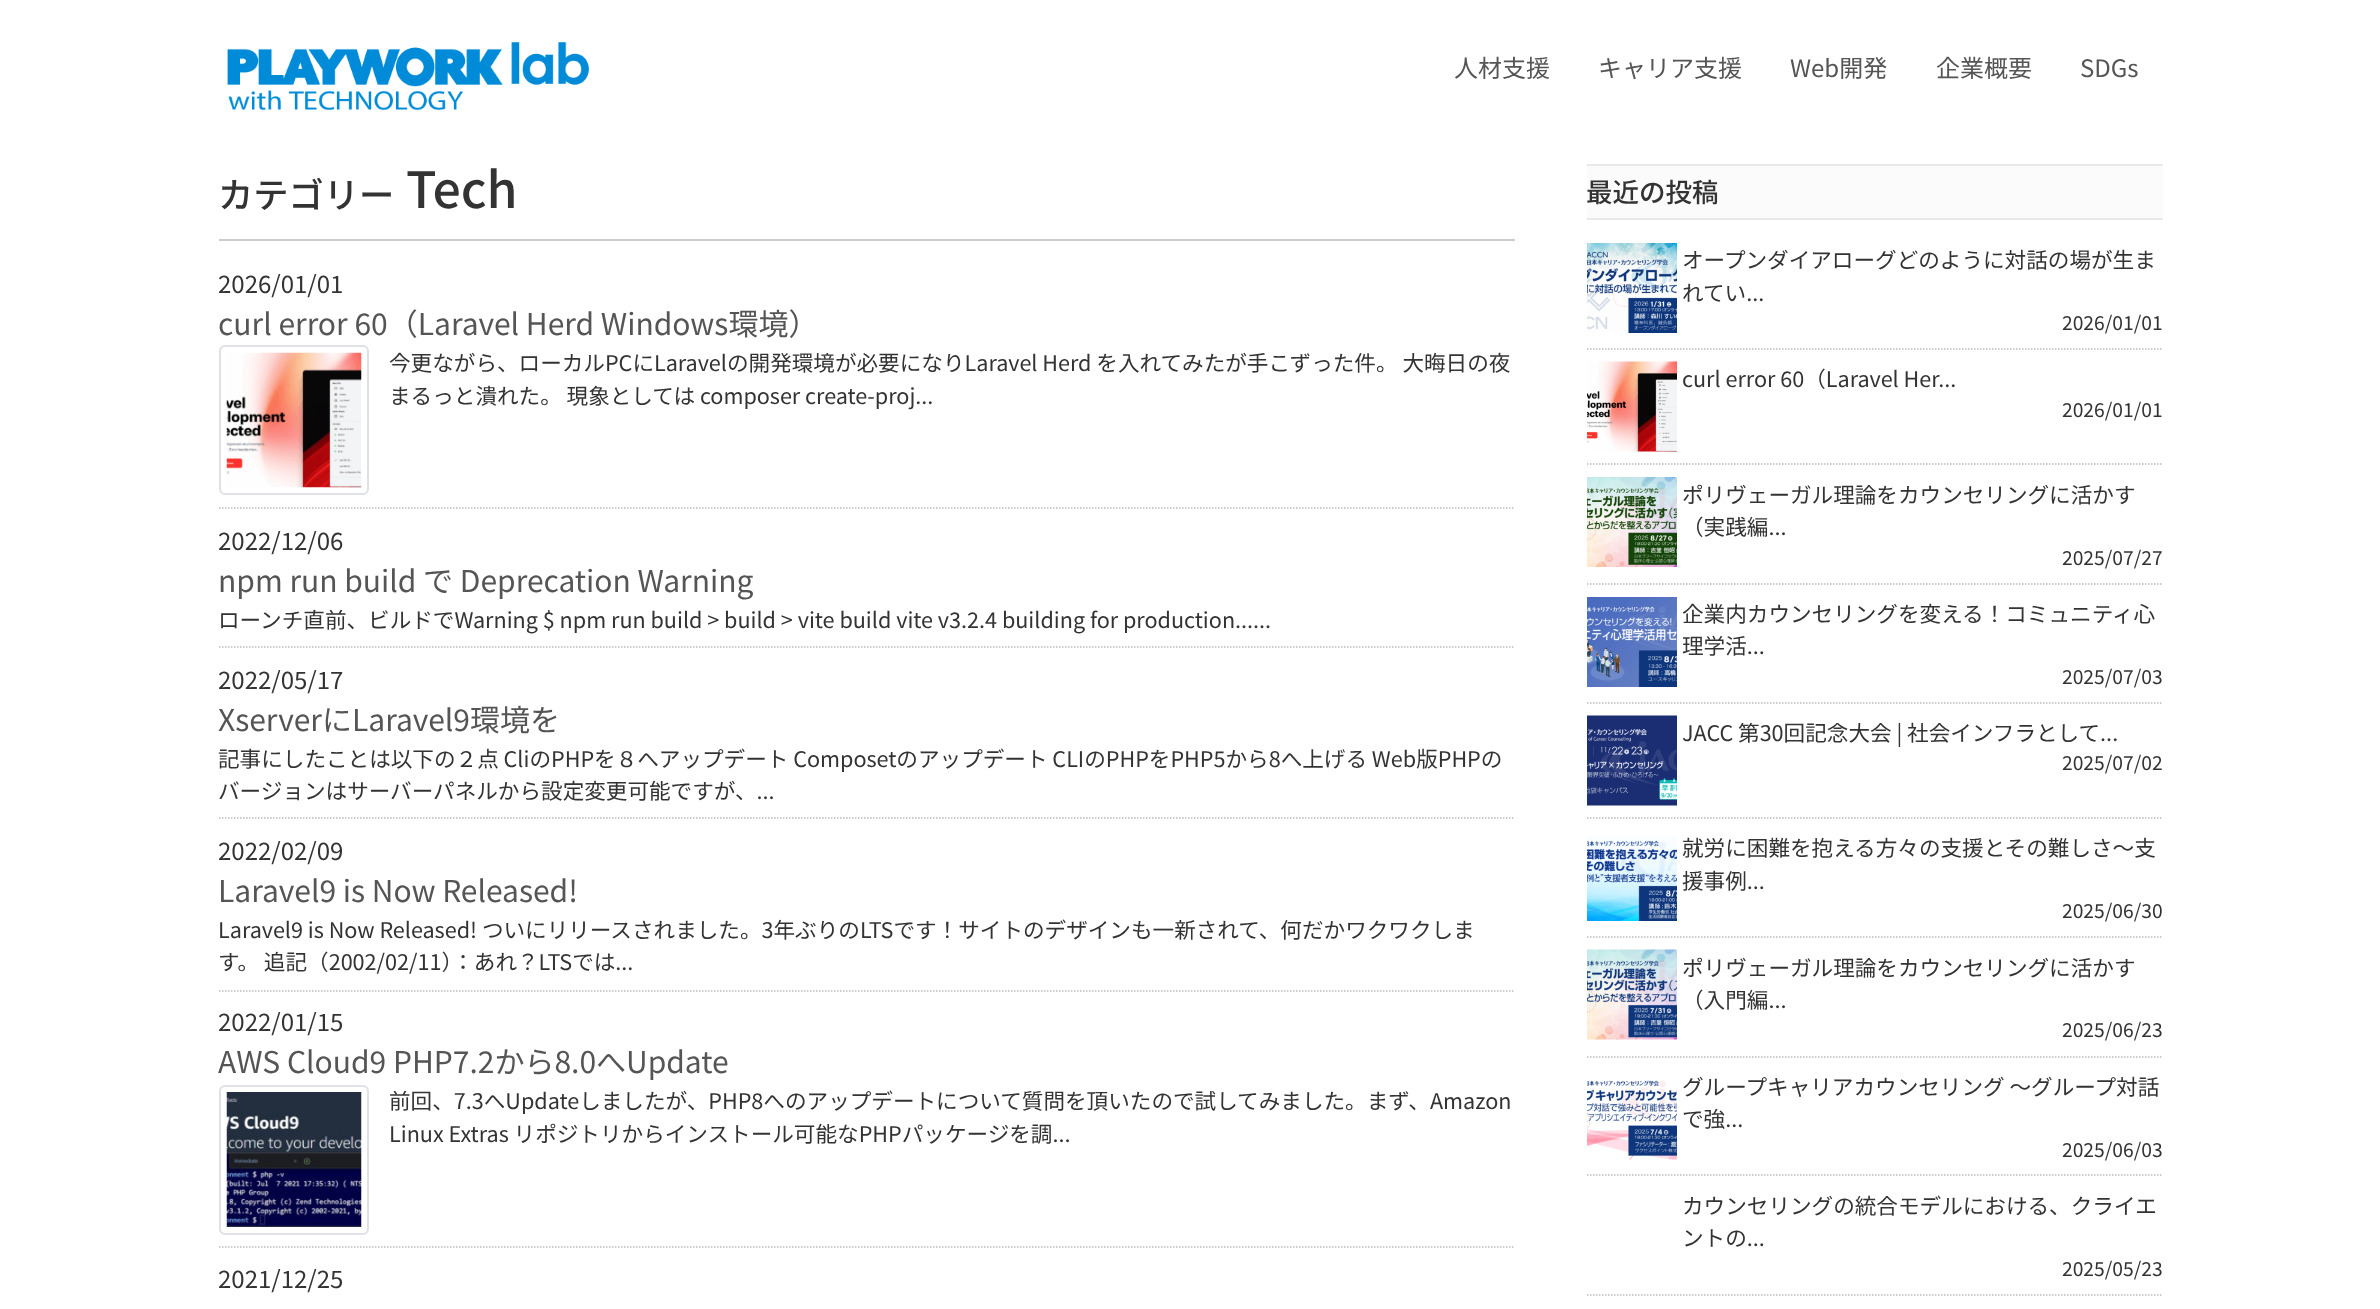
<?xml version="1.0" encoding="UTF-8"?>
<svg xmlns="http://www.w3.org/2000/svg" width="2380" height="1309">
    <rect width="100%" height="100%" fill="#FFFFFF"/>
    <image x="227" y="42" width="362" height="69" href="img_01.png"/>
    <text x="1454" y="77" font-family="Noto Sans JP" font-size="24" fill="#555555">人材支援</text>
    <text x="1598" y="77" font-family="Noto Sans JP" font-size="24" fill="#555555">キャリア支援</text>
    <text x="1790" y="77" font-family="Noto Sans JP" font-size="24" fill="#555555">Web開発</text>
    <text x="1936" y="77" font-family="Noto Sans JP" font-size="24" fill="#555555">企業概要</text>
    <text x="2080" y="77" font-family="Noto Sans JP" font-size="24" fill="#555555">SDGs</text>
    <text x="218" y="208" font-family="Noto Sans JP" font-size="35.25" font-weight="500" fill="#333333">カテゴリー</text>
    <text x="406" y="208" font-family="Noto Sans JP" font-size="50" font-weight="500" fill="#333333">Tech</text>
    <rect x="219" y="239" width="1296" height="2" fill="#CCCCCC"/>
    <path d="M 219 508 H 1515" fill="none" stroke="#BBBBBB" stroke-width="1.5" stroke-dasharray="1.5 1.5"/>
    <text x="218" y="293" font-family="Noto Sans JP" font-size="24" fill="#333333">2026/01/01</text>
    <text x="218" y="335" font-family="Noto Sans JP" font-size="30" fill="#555555">curl error 60（Laravel Herd Windows環境）</text>
    <rect x="220" y="346" width="148" height="148" rx="5" fill="none" stroke="#DEE2E6" stroke-width="2"/>
    <image x="226" y="352" width="136" height="136" href="img_02.png"/>
    <text font-family="Noto Sans JP" font-size="21.6" fill="#333333">
        <tspan x="389" y="371">今更ながら、ローカルPCにLaravelの開発環境が必要になりLaravel Herd を入れてみたが手こずった件。 大晦日の夜</tspan>
        <tspan x="389" y="404">まるっと潰れた。 現象としては composer create-proj...</tspan>
    </text>
    <path d="M 219 647 H 1515" fill="none" stroke="#BBBBBB" stroke-width="1.5" stroke-dasharray="1.5 1.5"/>
    <text x="218" y="550" font-family="Noto Sans JP" font-size="24" fill="#333333">2022/12/06</text>
    <text x="218" y="592" font-family="Noto Sans JP" font-size="30" fill="#555555">npm run build で Deprecation Warning</text>
    <text x="218" y="628" font-family="Noto Sans JP" font-size="21.6" fill="#333333">ローンチ直前、ビルドでWarning $ npm run build &gt; build &gt; vite build vite v3.2.4 building for production......</text>
    <path d="M 219 818 H 1515" fill="none" stroke="#BBBBBB" stroke-width="1.5" stroke-dasharray="1.5 1.5"/>
    <text x="218" y="689" font-family="Noto Sans JP" font-size="24" fill="#333333">2022/05/17</text>
    <text x="218" y="731" font-family="Noto Sans JP" font-size="30" fill="#555555">XserverにLaravel9環境を</text>
    <text font-family="Noto Sans JP" font-size="21.6" fill="#333333">
        <tspan x="218" y="767">記事にしたことは以下の２点 CliのPHPを８へアップデート Composetのアップデート CLIのPHPをPHP5から8へ上げる Web版PHPの</tspan>
        <tspan x="218" y="799">バージョンはサーバーパネルから設定変更可能ですが、...</tspan>
    </text>
    <path d="M 219 991 H 1515" fill="none" stroke="#BBBBBB" stroke-width="1.5" stroke-dasharray="1.5 1.5"/>
    <text x="218" y="860" font-family="Noto Sans JP" font-size="24" fill="#333333">2022/02/09</text>
    <text x="218" y="902" font-family="Noto Sans JP" font-size="30" fill="#555555">Laravel9 is Now Released!</text>
    <text font-family="Noto Sans JP" font-size="21.6" fill="#333333">
        <tspan x="218" y="938">Laravel9 is Now Released! ついにリリースされました。3年ぶりのLTSです！サイトのデザインも一新されて、何だかワクワクしま</tspan>
        <tspan x="218" y="970">す。 追記（2002/02/11）：あれ？LTSでは...</tspan>
    </text>
    <path d="M 219 1247 H 1515" fill="none" stroke="#BBBBBB" stroke-width="1.5" stroke-dasharray="1.5 1.5"/>
    <text x="218" y="1031" font-family="Noto Sans JP" font-size="24" fill="#333333">2022/01/15</text>
    <text x="218" y="1073" font-family="Noto Sans JP" font-size="30" fill="#555555">AWS Cloud9 PHP7.2から8.0へUpdate</text>
    <rect x="220" y="1086" width="148" height="148" rx="5" fill="none" stroke="#DEE2E6" stroke-width="2"/>
    <image x="226" y="1092" width="136" height="135" href="img_03.png"/>
    <text font-family="Noto Sans JP" font-size="21.6" fill="#333333">
        <tspan x="389" y="1109">前回、7.3へUpdateしましたが、PHP8へのアップデートについて質問を頂いたので試してみました。まず、Amazon</tspan>
        <tspan x="389" y="1142">Linux Extras リポジトリからインストール可能なPHPパッケージを調...</tspan>
    </text>
    <text x="218" y="1288" font-family="Noto Sans JP" font-size="24" fill="#333333">2021/12/25</text>
    <rect x="1587" y="166" width="576" height="52" fill="#FBFBFC"/>
    <rect x="1587" y="164" width="576" height="2" fill="#E9E9E9"/>
    <rect x="1587" y="218" width="576" height="2" fill="#E9E9E9"/>
    <text x="1586" y="202" font-family="Noto Sans JP" font-size="26.5" font-weight="500" fill="#333333">最近の投稿</text>
    <path d="M 1587 349 H 2163" fill="none" stroke="#BBBBBB" stroke-width="1.5" stroke-dasharray="1.5 1.5"/>
    <image x="1587" y="243" width="90" height="90" href="img_04.png"/>
    <text font-family="Noto Sans JP" font-size="21.6" fill="#333333">
        <tspan x="1682" y="268">オープンダイアローグどのように対話の場が生ま</tspan>
        <tspan x="1682" y="301">れてい...</tspan>
    </text>
    <text x="2062" y="330" font-family="Noto Sans JP" font-size="19.25" fill="#333333">2026/01/01</text>
    <path d="M 1587 464 H 2163" fill="none" stroke="#BBBBBB" stroke-width="1.5" stroke-dasharray="1.5 1.5"/>
    <image x="1587" y="361" width="90" height="91" href="img_05.png"/>
    <text x="1682" y="387" font-family="Noto Sans JP" font-size="21.6" fill="#333333">curl error 60（Laravel Her...</text>
    <text x="2062" y="417" font-family="Noto Sans JP" font-size="19.25" fill="#333333">2026/01/01</text>
    <path d="M 1587 584 H 2163" fill="none" stroke="#BBBBBB" stroke-width="1.5" stroke-dasharray="1.5 1.5"/>
    <image x="1587" y="477" width="90" height="90" href="img_06.png"/>
    <text font-family="Noto Sans JP" font-size="21.6" fill="#333333">
        <tspan x="1682" y="503">ポリヴェーガル理論をカウンセリングに活かす</tspan>
        <tspan x="1682" y="535">（実践編...</tspan>
    </text>
    <text x="2062" y="565" font-family="Noto Sans JP" font-size="19.25" fill="#333333">2025/07/27</text>
    <path d="M 1587 703 H 2163" fill="none" stroke="#BBBBBB" stroke-width="1.5" stroke-dasharray="1.5 1.5"/>
    <image x="1587" y="597" width="90" height="90" href="img_07.png"/>
    <text font-family="Noto Sans JP" font-size="21.6" fill="#333333">
        <tspan x="1682" y="622">企業内カウンセリングを変える！コミュニティ心</tspan>
        <tspan x="1682" y="654">理学活...</tspan>
    </text>
    <text x="2062" y="684" font-family="Noto Sans JP" font-size="19.25" fill="#333333">2025/07/03</text>
    <path d="M 1587 818 H 2163" fill="none" stroke="#BBBBBB" stroke-width="1.5" stroke-dasharray="1.5 1.5"/>
    <image x="1587" y="715" width="90" height="91" href="img_08.png"/>
    <text x="1682" y="741" font-family="Noto Sans JP" font-size="21.6" fill="#333333">JACC 第30回記念大会 | 社会インフラとして...</text>
    <text x="2062" y="770" font-family="Noto Sans JP" font-size="19.25" fill="#333333">2025/07/02</text>
    <path d="M 1587 937 H 2163" fill="none" stroke="#BBBBBB" stroke-width="1.5" stroke-dasharray="1.5 1.5"/>
    <image x="1587" y="836" width="90" height="85" href="img_09.png"/>
    <text font-family="Noto Sans JP" font-size="21.6" fill="#333333">
        <tspan x="1682" y="856">就労に困難を抱える方々の支援とその難しさ～支</tspan>
        <tspan x="1682" y="889">援事例...</tspan>
    </text>
    <text x="2062" y="918" font-family="Noto Sans JP" font-size="19.25" fill="#333333">2025/06/30</text>
    <path d="M 1587 1057 H 2163" fill="none" stroke="#BBBBBB" stroke-width="1.5" stroke-dasharray="1.5 1.5"/>
    <image x="1587" y="949" width="90" height="91" href="img_10.png"/>
    <text font-family="Noto Sans JP" font-size="21.6" fill="#333333">
        <tspan x="1682" y="976">ポリヴェーガル理論をカウンセリングに活かす</tspan>
        <tspan x="1682" y="1008">（入門編...</tspan>
    </text>
    <text x="2062" y="1037" font-family="Noto Sans JP" font-size="19.25" fill="#333333">2025/06/23</text>
    <path d="M 1587 1175 H 2163" fill="none" stroke="#BBBBBB" stroke-width="1.5" stroke-dasharray="1.5 1.5"/>
    <image x="1587" y="1080" width="90" height="80" href="img_11.png"/>
    <text font-family="Noto Sans JP" font-size="21.6" fill="#333333">
        <tspan x="1682" y="1095">グループキャリアカウンセリング ～グループ対話</tspan>
        <tspan x="1682" y="1127">で強...</tspan>
    </text>
    <text x="2062" y="1157" font-family="Noto Sans JP" font-size="19.25" fill="#333333">2025/06/03</text>
    <path d="M 1587 1295 H 2163" fill="none" stroke="#BBBBBB" stroke-width="1.5" stroke-dasharray="1.5 1.5"/>
    <text font-family="Noto Sans JP" font-size="21.6" fill="#333333">
        <tspan x="1682" y="1214">カウンセリングの統合モデルにおける、クライエ</tspan>
        <tspan x="1682" y="1246">ントの...</tspan>
    </text>
    <text x="2062" y="1276" font-family="Noto Sans JP" font-size="19.25" fill="#333333">2025/05/23</text>
</svg>
